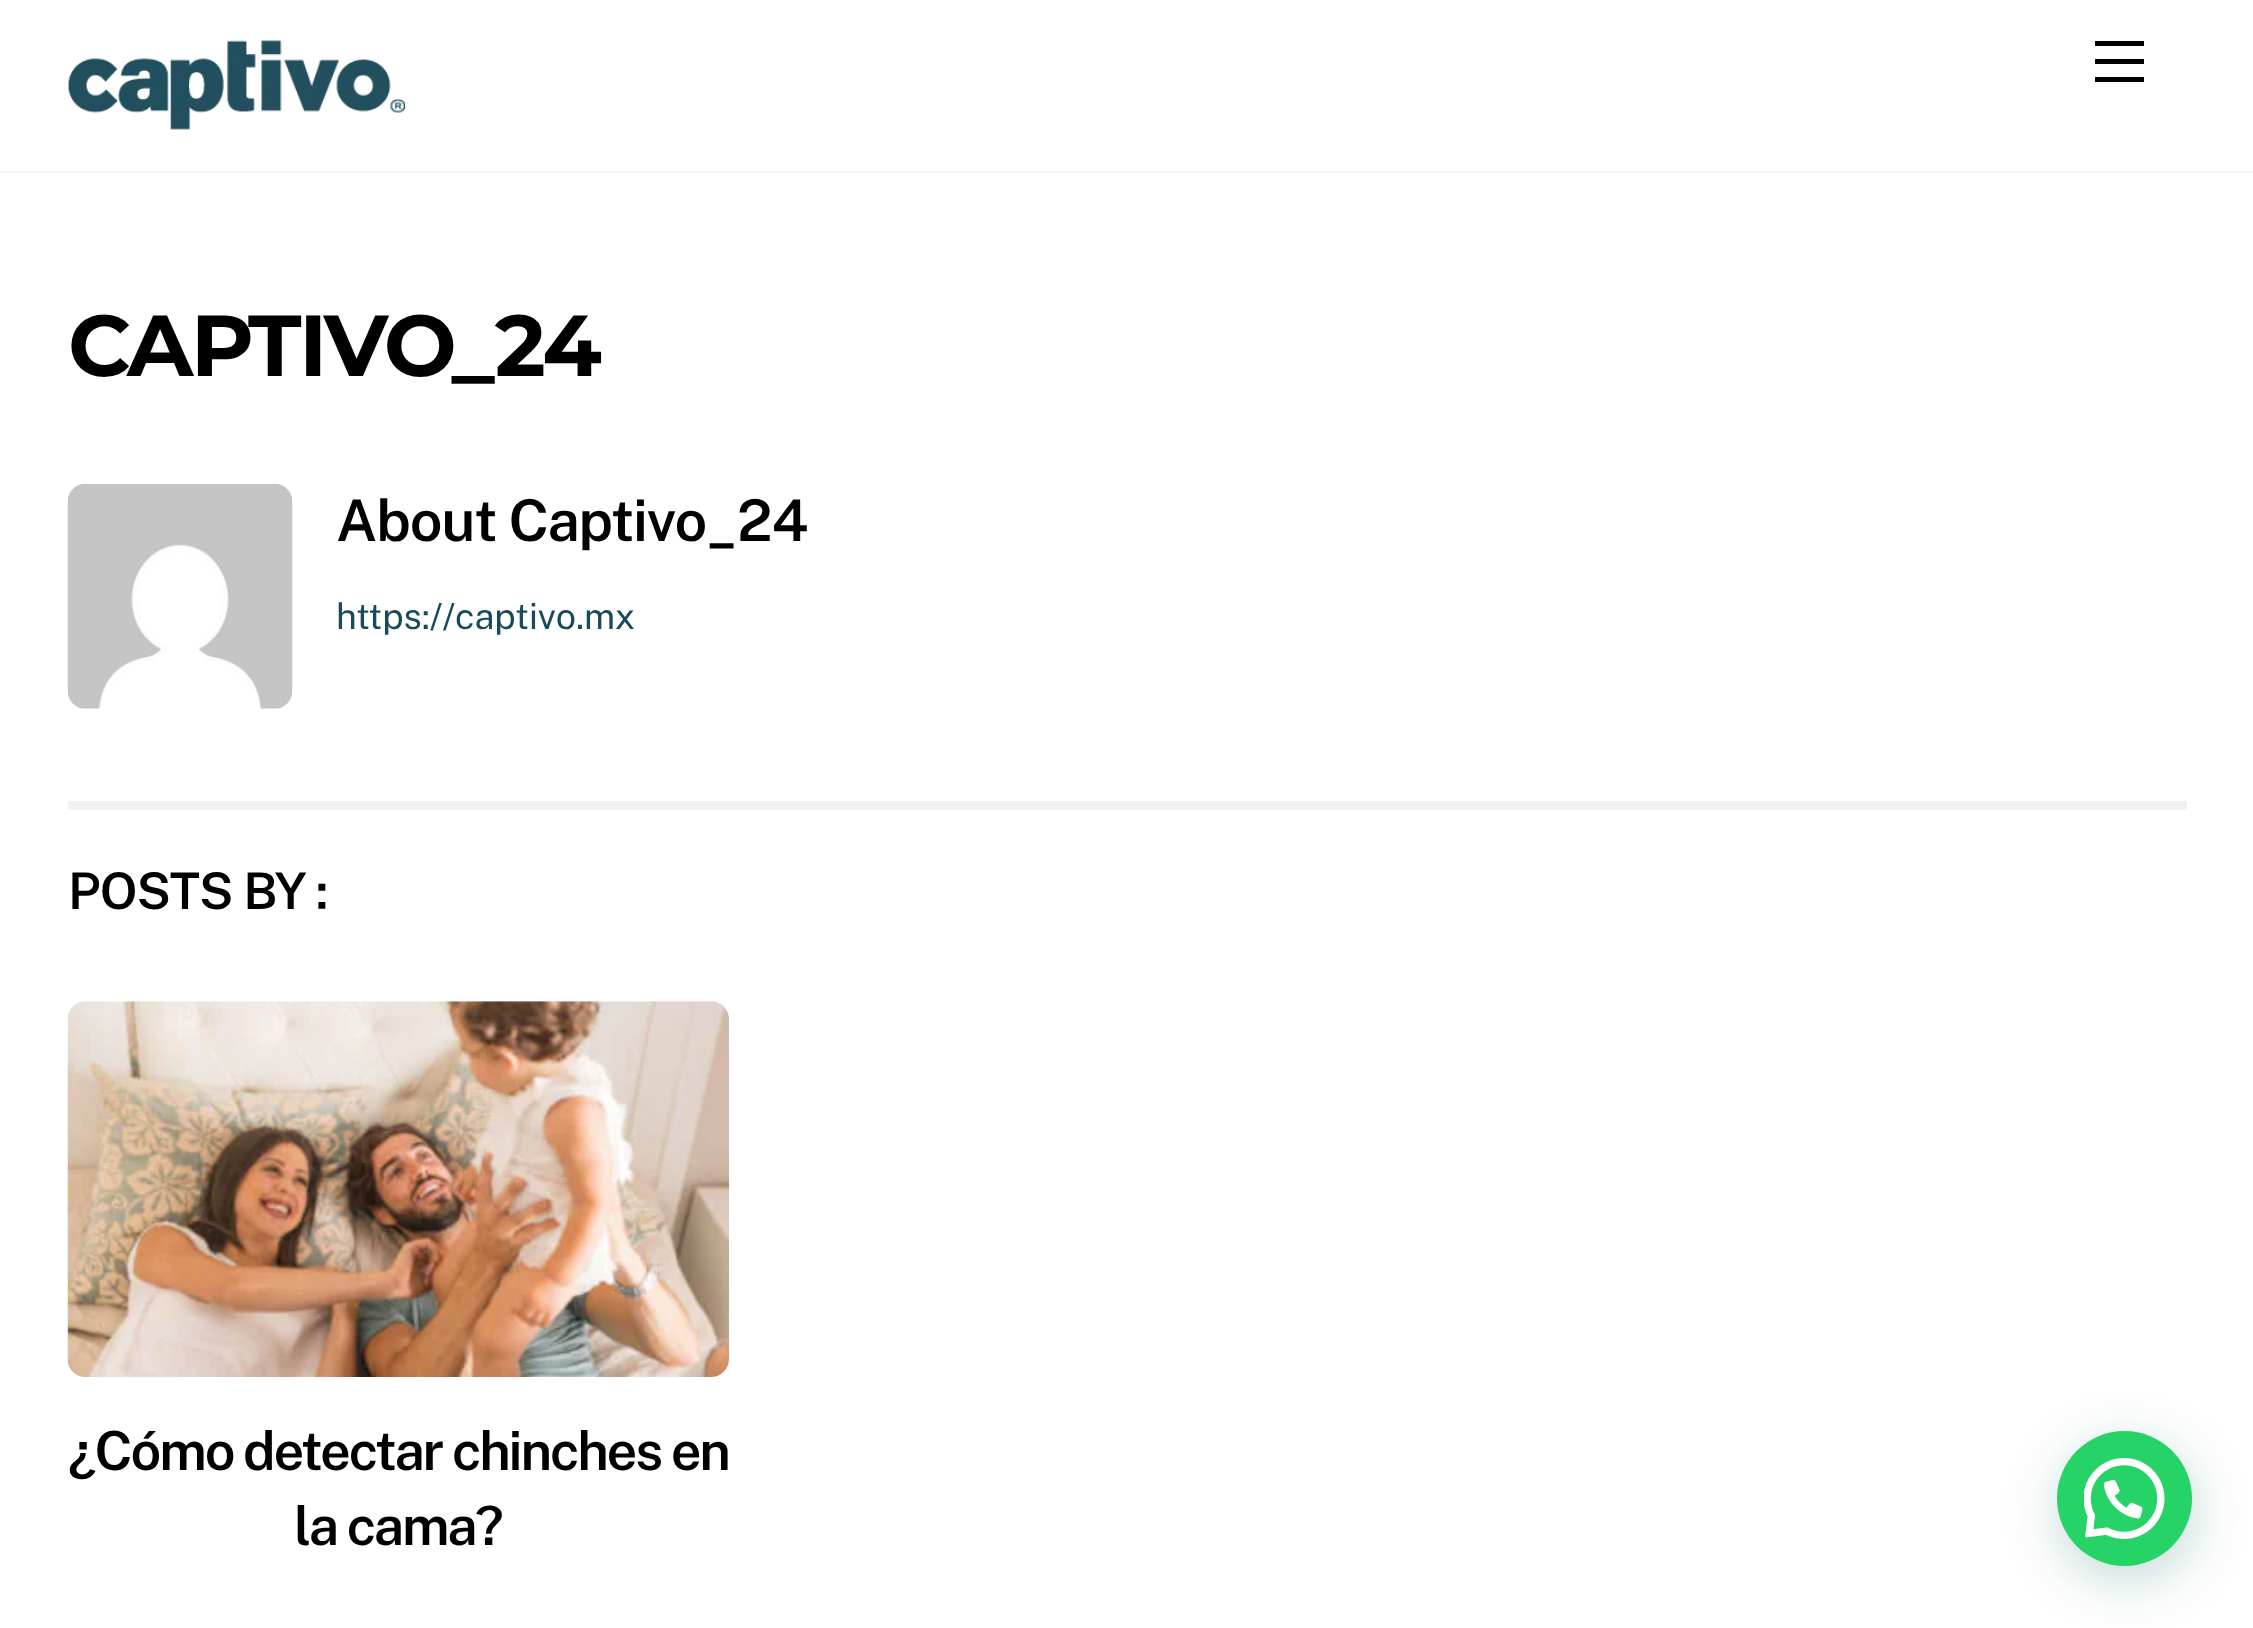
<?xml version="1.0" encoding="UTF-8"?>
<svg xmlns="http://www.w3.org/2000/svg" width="2253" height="1628">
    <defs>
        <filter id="blur1" x="-50%" y="-200%" width="200%" height="500%"><feGaussianBlur stdDeviation="27"/></filter>
    </defs>
    <rect width="100%" height="100%" fill="#FFFFFF"/>
    <rect x="0" y="171" width="2253" height="2" fill="#F2F2F2"/>
    <image x="68" y="40" width="338" height="90" href="img_01.png"/>
    <rect x="2095" y="77" width="49" height="5" fill="#000000"/>
    <rect x="2095" y="41" width="49" height="5" fill="#000000"/>
    <rect x="2095" y="59" width="49" height="5" fill="#000000"/>
    <text x="68" y="376" font-family="Montserrat" font-size="86.5" font-weight="700" letter-spacing="-2.5" fill="#000000">CAPTIVO_24</text>
    <image x="67" y="484" width="226" height="225" href="img_02.png"/>
    <text x="336" y="541" font-family="Public Sans" font-size="57.5" font-weight="600" letter-spacing="-1.1" fill="#000000">About Captivo_24</text>
    <text x="336" y="629" font-family="Public Sans" font-size="36" fill="#174A5B">https://captivo.mx</text>
    <rect x="68" y="801" width="2119" height="9" fill="#F1F1F1"/>
    <text x="68" y="909" font-family="Public Sans" font-size="50.5" font-weight="600" letter-spacing="-1" fill="#000000">POSTS BY :</text>
    <image x="67" y="1001" width="662" height="376" href="img_03.png"/>
    <text x="68" y="1470" font-family="Public Sans" font-size="54" font-weight="600" letter-spacing="-2.15" fill="#000000">¿Cómo detectar chinches en</text>
    <text x="294" y="1545" font-family="Public Sans" font-size="54" font-weight="600" letter-spacing="-2.15" fill="#000000">la cama?</text>
    <rect x="2059" y="1445" width="135" height="135" rx="67.5" fill="#075E54" fill-opacity="0.24" filter="url(#blur1)"/>
    <circle cx="2124.5" cy="1498.5" r="67.5" fill="#25D366"/>
    <image x="2084" y="1458" width="81" height="81" href="img_04.png"/>
</svg>
